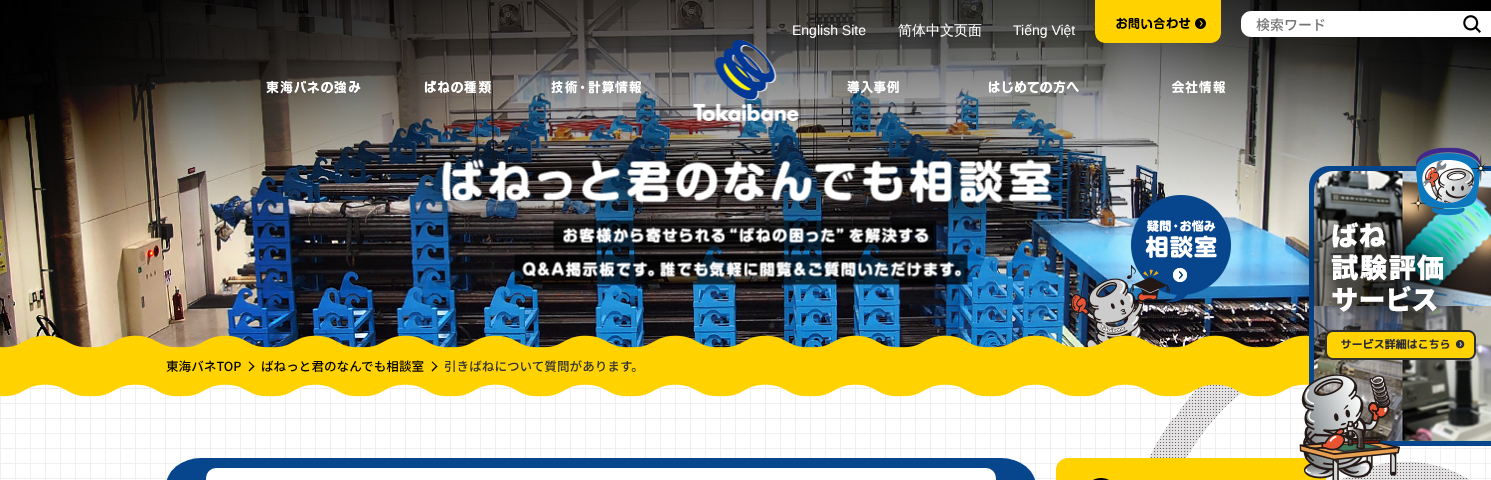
<?xml version="1.0" encoding="UTF-8"?>
<svg xmlns="http://www.w3.org/2000/svg" width="1491" height="480">
    <rect width="100%" height="100%" fill="#FFFFFF"/>
    <image x="0" y="0" width="1491" height="348" href="img_10.png"/>
    <text x="792" y="35" font-family="Liberation Sans" font-size="14" fill="#FFFFFF">English Site</text>
    <text x="898" y="35" font-family="WenQuanYi Zen Hei" font-size="14" font-weight="500" fill="#FFFFFF">简体中文页面</text>
    <text x="1013" y="35" font-family="Liberation Sans" font-size="14" fill="#FFFFFF">Tiếng Việt</text>
    <image x="1095" y="0" width="126" height="43" href="img_01.png"/>
    <path d="M 1251 11 H 1491 V 37 H 1251 C 1245.5 37 1241 32.5 1241 27 V 21 C 1241 15.5 1245.5 11 1251 11 Z" fill="#FFFFFF"/>
    <text x="1256" y="30" font-family="Noto Sans JP" font-size="14" font-weight="500" fill="#757575">検索ワード</text>
    <image x="1463" y="15" width="18" height="18" href="img_02.png"/>
    <image x="693" y="40" width="106" height="81" href="img_03.png"/>
    <image x="266" y="80" width="95" height="14" href="img_04.png"/>
    <image x="424" y="80" width="67" height="14" href="img_05.png"/>
    <image x="551" y="80" width="90" height="14" href="img_06.png"/>
    <image x="847" y="80" width="52" height="14" href="img_07.png"/>
    <image x="988" y="80" width="91" height="13" href="img_08.png"/>
    <image x="1172" y="80" width="53" height="14" href="img_09.png"/>
    <image x="406" y="123" width="677" height="162" href="img_11.png"/>
    <image x="1131" y="195" width="100" height="107" href="img_13.png"/>
    <image x="1071" y="265" width="99" height="83" href="img_12.png"/>
    <image x="0" y="335" width="1309" height="15" href="img_14.png"/>
    <rect x="0" y="350" width="1309" height="47" fill="#FFD200"/>
    <text x="166" y="371" font-family="Noto Sans JP" font-size="12.6" font-weight="500" fill="#000000">東海バネTOP</text>
    <path d="M 249.5 361.5 L 254.5 366.5 L 253.5 367 L 248.5 362 Z" fill="#000000"/>
    <path d="M 253.5 365.5 L 254.5 366.5 L 249.5 371.5 L 248.5 370.5 Z" fill="#000000"/>
    <text x="261" y="371" font-family="Noto Sans JP" font-size="12.6" font-weight="500" fill="#000000">ばねっと君のなんでも相談室</text>
    <path d="M 432.5 361.5 L 437.5 366.5 L 436.5 367 L 431.5 362 Z" fill="#000000"/>
    <path d="M 436.5 365.5 L 437.5 366.5 L 432.5 371.5 L 431.5 370.5 Z" fill="#000000"/>
    <text x="444" y="371" font-family="Noto Sans JP" font-size="12.6" font-weight="500" fill="#333333">引きばねについて質問があります。</text>
    <image x="0" y="384" width="1309" height="34" href="img_15.png"/>
    <image x="1175" y="384" width="67" height="34" href="img_16.png"/>
    <image x="0" y="418" width="1491" height="62" href="img_20.png"/>
    <image x="1149" y="418" width="321" height="62" href="img_21.png"/>
    <image x="1293" y="166" width="198" height="280" href="img_18.png"/>
    <image x="1410" y="147" width="81" height="69" href="img_17.png"/>
    <rect x="1056" y="458" width="270" height="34" rx="12" fill="#FFD200"/>
    <image x="1299" y="374" width="101" height="106" href="img_19.png"/>
    <rect x="166" y="458" width="870" height="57" rx="35" fill="#07468C"/>
    <rect x="206" y="468" width="790" height="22" rx="10" fill="#FFFFFF"/>
    <image x="1093" y="478" width="16" height="2" href="img_22.png"/>
</svg>
